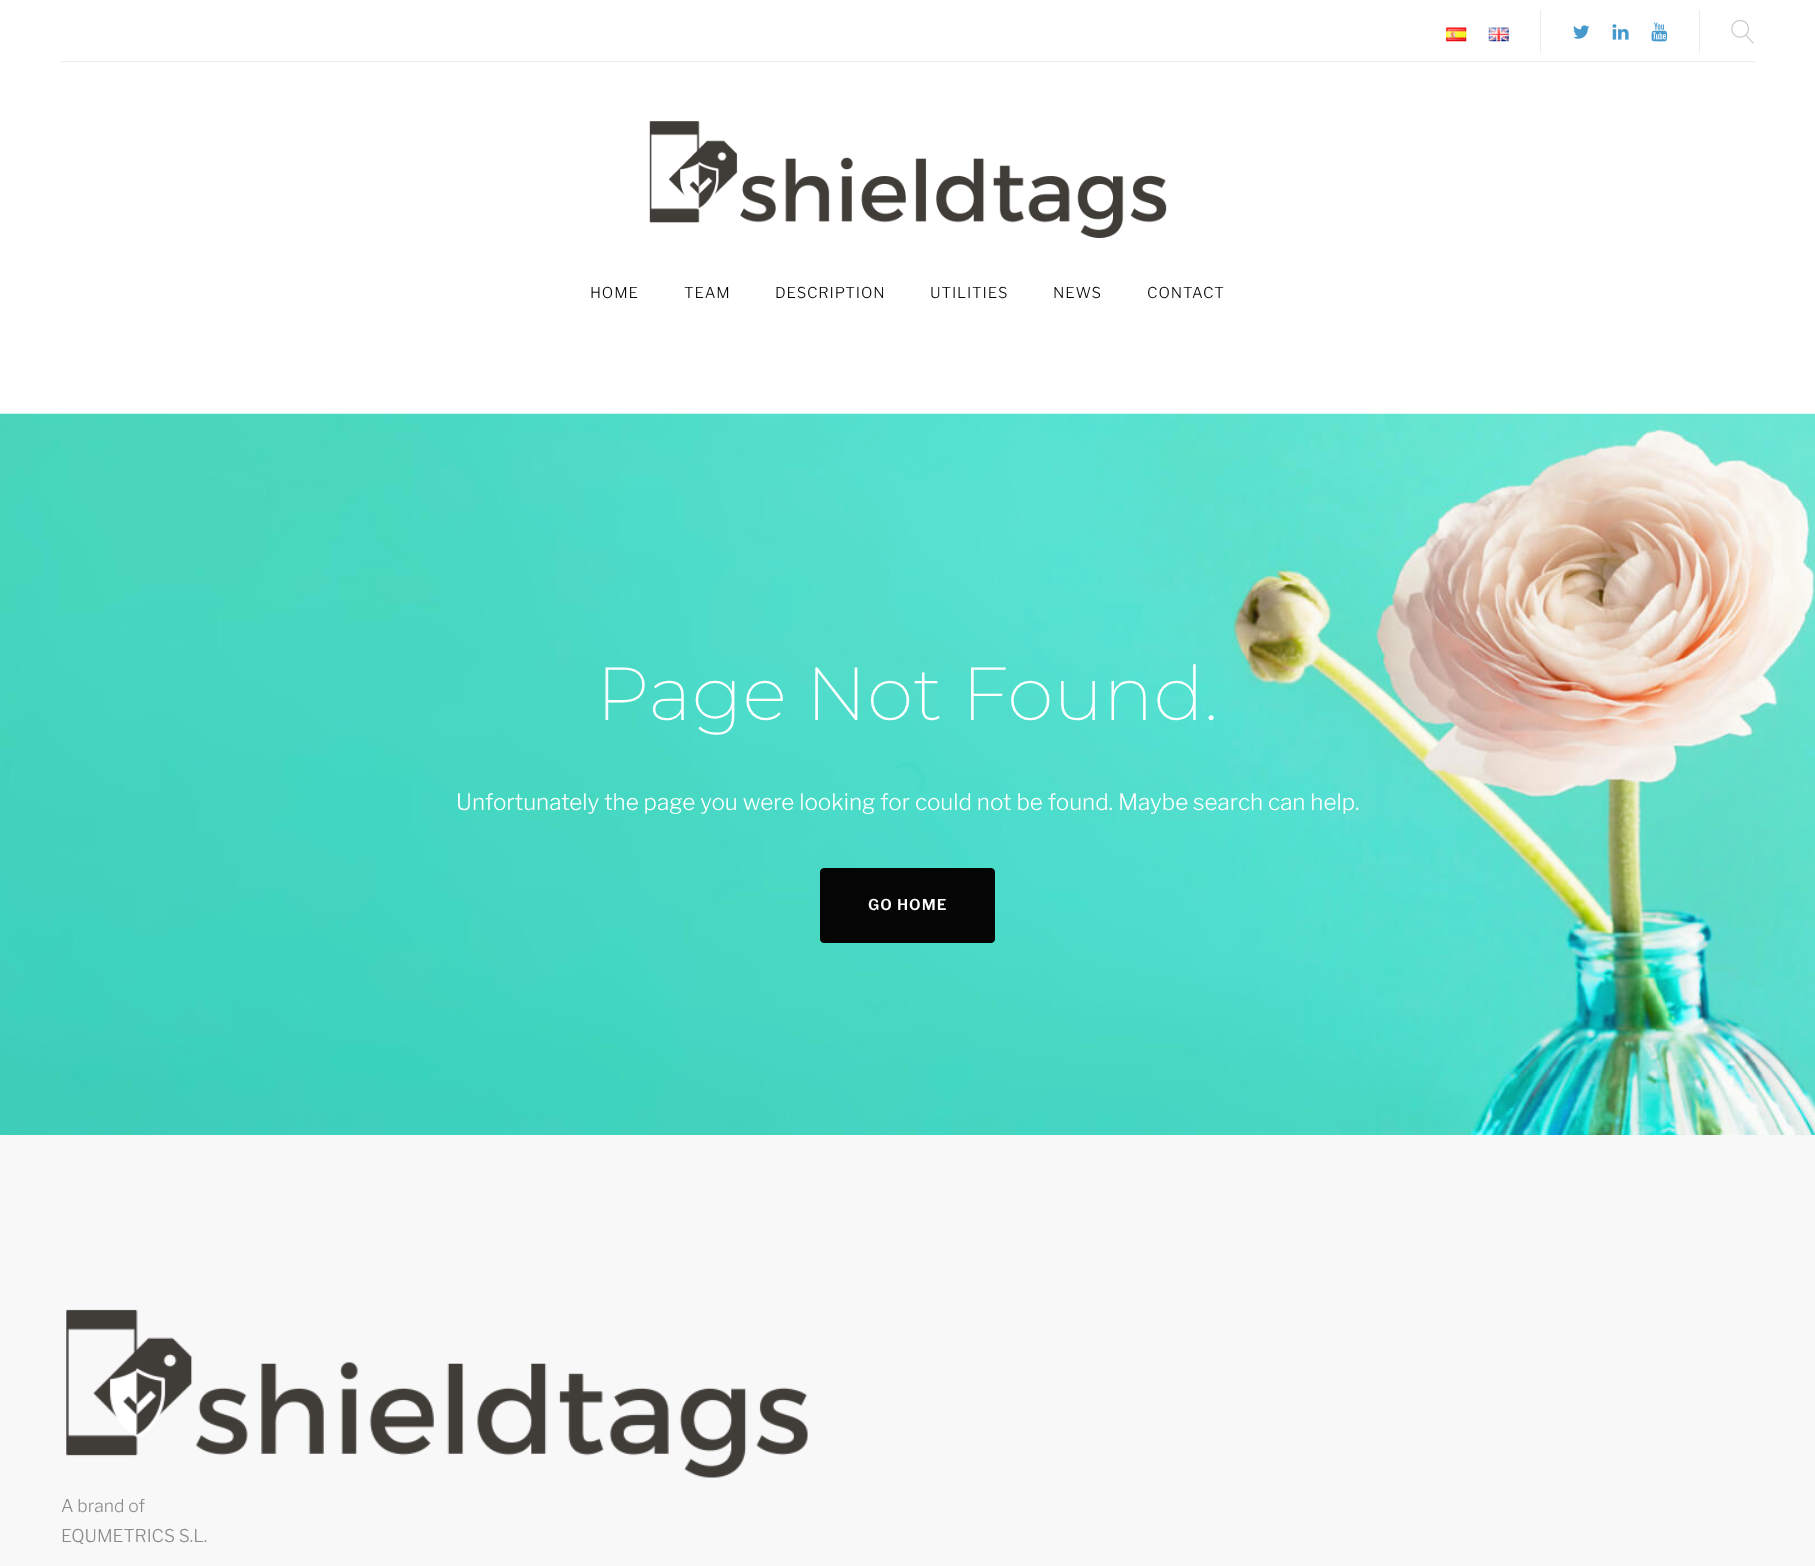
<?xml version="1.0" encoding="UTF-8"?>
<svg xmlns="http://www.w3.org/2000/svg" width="1815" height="1566">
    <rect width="100%" height="100%" fill="#FFFFFF"/>
    <rect x="61" y="61" width="1694" height="1" fill="#ECECEE"/>
    <rect x="1540" y="10" width="1" height="43" fill="#ECECEE"/>
    <image x="1446" y="27" width="21" height="15" href="img_01.png"/>
    <image x="1488" y="27" width="21" height="15" href="img_02.png"/>
    <rect x="1699" y="10" width="1" height="43" fill="#ECECEE"/>
    <image x="1573" y="25" width="17" height="14" href="img_03.png"/>
    <image x="1612" y="24" width="17" height="16" href="img_04.png"/>
    <image x="1651" y="22" width="17" height="20" href="img_05.png"/>
    <image x="1731" y="20" width="23" height="24" href="img_06.png"/>
    <image x="649" y="121" width="518" height="117" href="img_07.png"/>
    <text x="590" y="298" font-family="Libre Franklin" font-size="15" font-weight="300" letter-spacing="0.9" fill="#050505">HOME</text>
    <text x="684" y="298" font-family="Libre Franklin" font-size="15" font-weight="300" letter-spacing="0.9" fill="#050505">TEAM</text>
    <text x="775" y="298" font-family="Libre Franklin" font-size="15" font-weight="300" letter-spacing="0.9" fill="#050505">DESCRIPTION</text>
    <text x="930" y="298" font-family="Libre Franklin" font-size="15" font-weight="300" letter-spacing="0.9" fill="#050505">UTILITIES</text>
    <text x="1053" y="298" font-family="Libre Franklin" font-size="15" font-weight="300" letter-spacing="0.9" fill="#050505">NEWS</text>
    <text x="1147" y="298" font-family="Libre Franklin" font-size="15" font-weight="300" letter-spacing="0.9" fill="#050505">CONTACT</text>
    <image x="0" y="413" width="1815" height="722" href="img_08.png"/>
    <text x="596" y="720" font-family="Montserrat" font-size="75" font-weight="200" fill="#FFFFFF">Page Not Found.</text>
    <text x="456" y="810" font-family="Libre Franklin" font-size="22.5" font-weight="300" fill="#FFFFFF">Unfortunately the page you were looking for could not be found. Maybe search can help.</text>
    <rect x="820.5" y="868.5" width="174" height="74" rx="3.5" fill="#050505" stroke="#050505"/>
    <text x="868" y="910" font-family="Libre Franklin" font-size="15" font-weight="600" letter-spacing="1" fill="#FFFFFF">GO HOME</text>
    <rect x="0" y="1135" width="1815" height="431" fill="#F8F8F8"/>
    <image x="66" y="1309" width="742" height="169" href="img_09.png"/>
    <text font-family="Libre Franklin" font-size="17.5" font-weight="300" fill="#8A8A8A">
        <tspan x="61" y="1512">A brand of</tspan>
        <tspan x="61" y="1542">EQUMETRICS S.L.</tspan>
    </text>
    <path d="M 894.5 769.5 C 906 757.5 926 768.5 923 784.5 C 922 788 920.5 791 918 793" fill="none" stroke="#48DAC9" stroke-width="3.8"/>
</svg>
